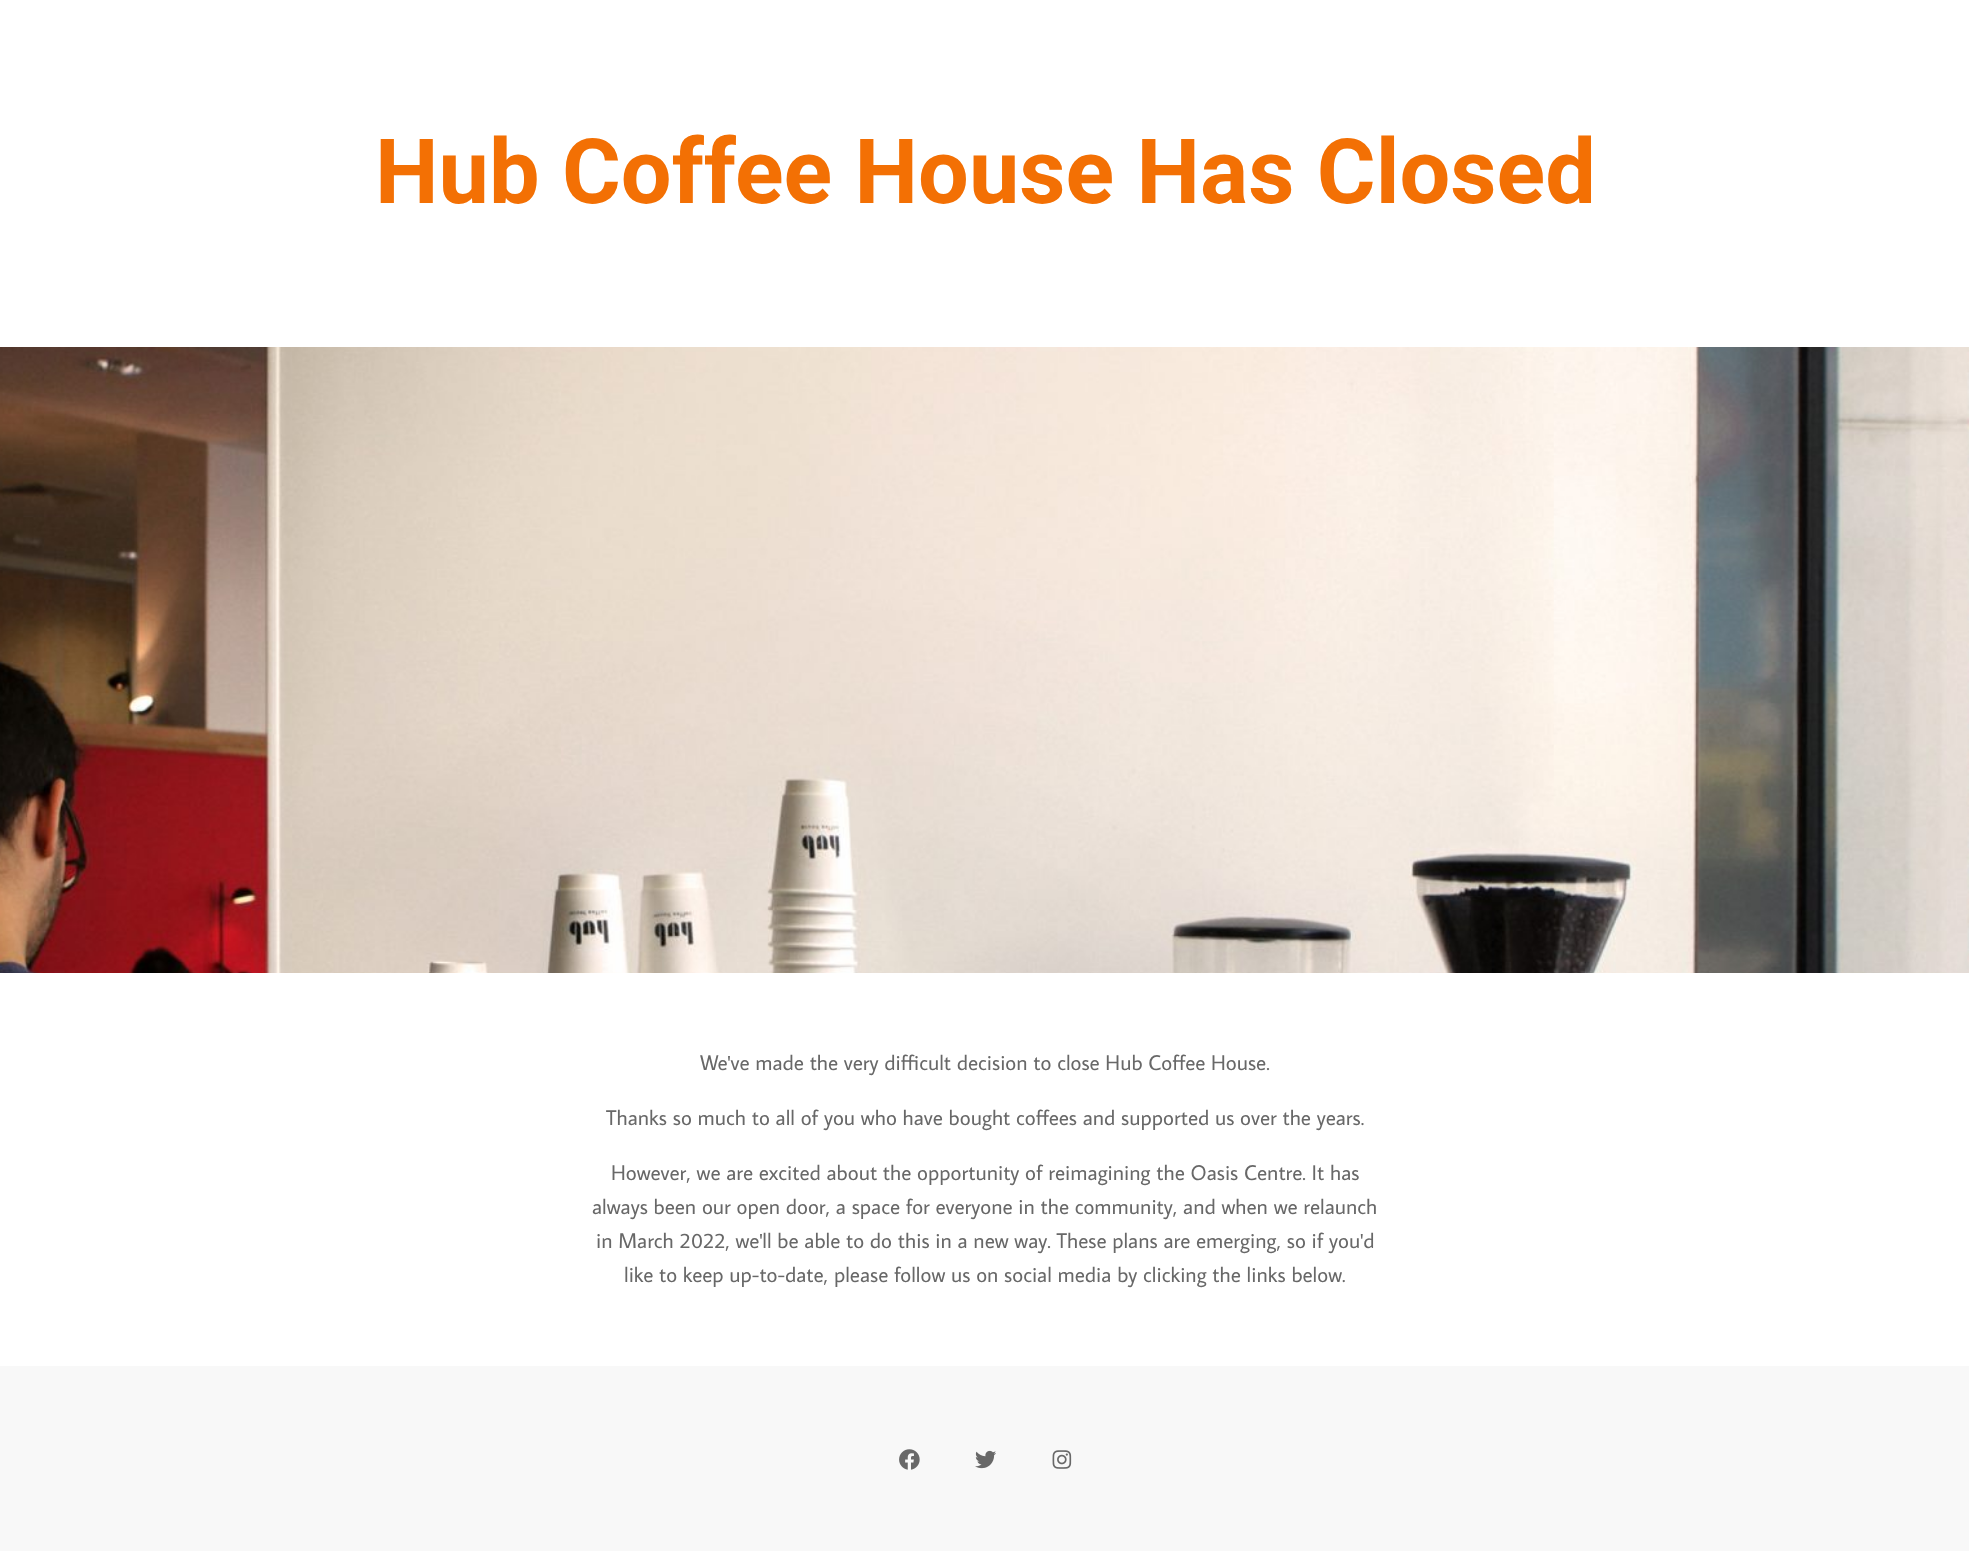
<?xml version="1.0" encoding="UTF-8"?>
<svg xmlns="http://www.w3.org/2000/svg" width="1969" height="1551">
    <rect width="100%" height="100%" fill="#FFFFFF"/>
    <text x="375" y="203" font-family="Roboto" font-size="90" font-weight="700" fill="#F37004">Hub Coffee House Has Closed</text>
    <image x="0" y="347" width="1969" height="626" href="img_01.png"/>
    <text x="700" y="1070" font-family="Average Sans" font-size="21.25" fill="#686868">We've made the very difficult decision to close Hub Coffee House.</text>
    <text x="606" y="1125" font-family="Average Sans" font-size="21.25" fill="#686868">Thanks so much to all of you who have bought coffees and supported us over the years.</text>
    <text x="611" y="1180" font-family="Average Sans" font-size="21.25" fill="#686868">However, we are excited about the opportunity of reimagining the Oasis Centre. It has</text>
    <text x="592" y="1214" font-family="Average Sans" font-size="21.25" fill="#686868">always been our open door, a space for everyone in the community, and when we relaunch</text>
    <text x="596" y="1248" font-family="Average Sans" font-size="21.25" fill="#686868">in March 2022, we'll be able to do this in a new way. These plans are emerging, so if you'd</text>
    <text x="624" y="1282" font-family="Average Sans" font-size="21.25" fill="#686868">like to keep up-to-date, please follow us on social media by clicking the links below.</text>
    <rect x="0" y="1366" width="1969" height="185" fill="#F8F8F8"/>
    <image x="899" y="1449" width="21" height="21" href="img_02.png"/>
    <image x="975" y="1450" width="21" height="19" href="img_03.png"/>
    <image x="1052" y="1450" width="20" height="19" href="img_04.png"/>
</svg>
